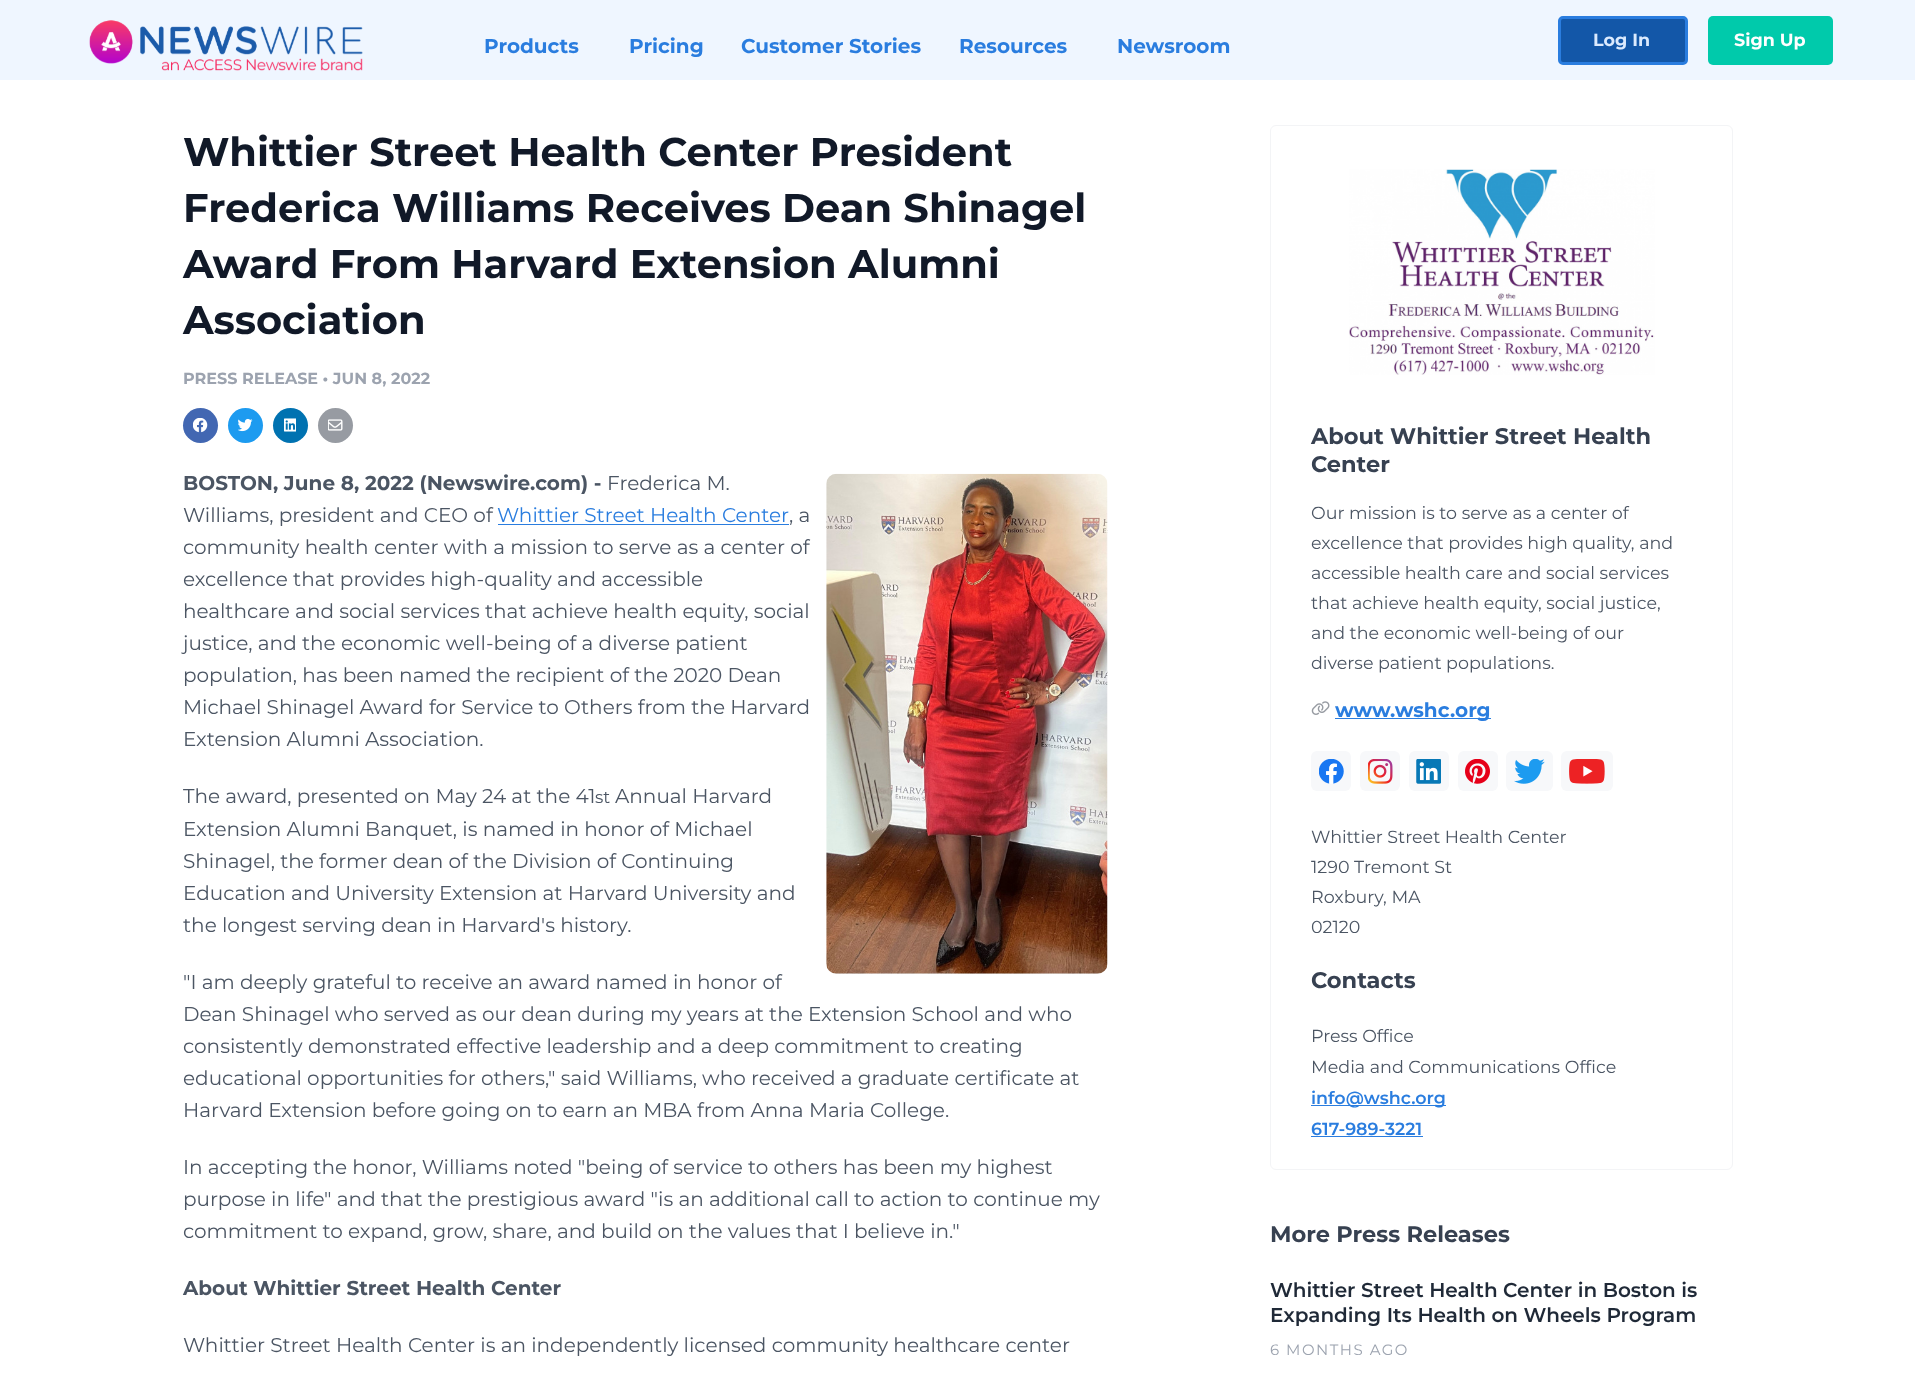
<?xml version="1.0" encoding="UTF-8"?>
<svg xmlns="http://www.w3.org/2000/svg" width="1915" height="1374">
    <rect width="100%" height="100%" fill="#FFFFFF"/>
    <rect x="0" y="0" width="1915" height="80" fill="#EFF6FF"/>
    <image x="89" y="20" width="274" height="51" href="img_01.png"/>
    <text x="484" y="53" font-family="Montserrat" font-size="20" font-weight="700" fill="#2A7DDF">Products</text>
    <text x="629" y="53" font-family="Montserrat" font-size="20" font-weight="700" fill="#2A7DDF">Pricing</text>
    <text x="741" y="53" font-family="Montserrat" font-size="20" font-weight="700" fill="#2A7DDF">Customer Stories</text>
    <text x="959" y="53" font-family="Montserrat" font-size="20" font-weight="700" fill="#2A7DDF">Resources</text>
    <text x="1117" y="53" font-family="Montserrat" font-size="20" font-weight="700" fill="#2A7DDF">Newsroom</text>
    <rect x="1559.5" y="17.5" width="127" height="46" rx="3.5" fill="#1357A8" stroke="#2A7DDF" stroke-width="3"/>
    <text x="1593" y="46" font-family="Montserrat" font-size="17.5" font-weight="700" fill="#DBEAFE">Log In</text>
    <rect x="1708" y="16" width="125" height="49" rx="5" fill="#00CAAB"/>
    <text x="1734" y="46" font-family="Montserrat" font-size="17.5" font-weight="700" fill="#FFFFFF">Sign Up</text>
    <text font-family="Montserrat" font-size="40" font-weight="700" fill="#111928">
        <tspan x="183" y="166">Whittier Street Health Center President</tspan>
        <tspan x="183" y="222">Frederica Williams Receives Dean Shinagel</tspan>
        <tspan x="183" y="278">Award From Harvard Extension Alumni</tspan>
        <tspan x="183" y="334">Association</tspan>
    </text>
    <text x="183" y="384" font-family="Montserrat" font-size="16" font-weight="700" fill="#9CA3AF">PRESS RELEASE • JUN 8, 2022</text>
    <circle cx="200.5" cy="425.5" r="17.5" fill="#4267B2"/>
    <image x="193" y="418" width="15" height="15" href="img_02.png"/>
    <circle cx="245.5" cy="425.5" r="17.5" fill="#1D9BF0"/>
    <image x="238" y="418" width="15" height="14" href="img_03.png"/>
    <circle cx="290.5" cy="425.5" r="17.5" fill="#0072B1"/>
    <image x="284" y="418" width="12" height="14" href="img_04.png"/>
    <circle cx="335.5" cy="425.5" r="17.5" fill="#979BA2"/>
    <image x="328" y="419" width="15" height="12" href="img_05.png"/>
    <image x="826" y="473" width="282" height="501" href="img_06.png"/>
    <text x="183" y="490" font-family="Montserrat" font-size="20" font-weight="700" fill="#4B5563">BOSTON, June 8, 2022 (Newswire.com) -</text>
    <text x="607" y="490" font-family="Montserrat" font-size="20" fill="#4B5563">Frederica M.</text>
    <text x="183" y="522" font-family="Montserrat" font-size="20" fill="#4B5563">Williams, president and CEO of</text>
    <text x="497" y="522" font-family="Montserrat" font-size="20" fill="#2A7DDF">Whittier Street Health Center</text>
    <rect x="498" y="524" width="291" height="1" fill="#2A7DDF"/>
    <text x="789" y="522" font-family="Montserrat" font-size="20" fill="#4B5563">, a</text>
    <text font-family="Montserrat" font-size="20" fill="#4B5563">
        <tspan x="183" y="554">community health center with a mission to serve as a center of</tspan>
        <tspan x="183" y="586">excellence that provides high-quality and accessible</tspan>
        <tspan x="183" y="618">healthcare and social services that achieve health equity, social</tspan>
        <tspan x="183" y="650">justice, and the economic well-being of a diverse patient</tspan>
        <tspan x="183" y="682">population, has been named the recipient of the 2020 Dean</tspan>
        <tspan x="183" y="714">Michael Shinagel Award for Service to Others from the Harvard</tspan>
        <tspan x="183" y="746">Extension Alumni Association.</tspan>
    </text>
    <text x="183" y="803" font-family="Montserrat" font-size="20" fill="#4B5563">The award, presented on May 24 at the 41</text>
    <text x="595" y="803" font-family="Montserrat" font-size="17" fill="#4B5563">st</text>
    <text x="615" y="803" font-family="Montserrat" font-size="20" fill="#4B5563">Annual Harvard</text>
    <text font-family="Montserrat" font-size="20" fill="#4B5563">
        <tspan x="183" y="836">Extension Alumni Banquet, is named in honor of Michael</tspan>
        <tspan x="183" y="868">Shinagel, the former dean of the Division of Continuing</tspan>
        <tspan x="183" y="900">Education and University Extension at Harvard University and</tspan>
        <tspan x="183" y="932">the longest serving dean in Harvard's history.</tspan>
    </text>
    <text font-family="Montserrat" font-size="20" fill="#4B5563">
        <tspan x="183" y="989">"I am deeply grateful to receive an award named in honor of</tspan>
        <tspan x="183" y="1021">Dean Shinagel who served as our dean during my years at the Extension School and who</tspan>
        <tspan x="183" y="1053">consistently demonstrated effective leadership and a deep commitment to creating</tspan>
        <tspan x="183" y="1085">educational opportunities for others," said Williams, who received a graduate certificate at</tspan>
        <tspan x="183" y="1117">Harvard Extension before going on to earn an MBA from Anna Maria College.</tspan>
    </text>
    <text font-family="Montserrat" font-size="20" fill="#4B5563">
        <tspan x="183" y="1174">In accepting the honor, Williams noted "being of service to others has been my highest</tspan>
        <tspan x="183" y="1206">purpose in life" and that the prestigious award "is an additional call to action to continue my</tspan>
        <tspan x="183" y="1238">commitment to expand, grow, share, and build on the values that I believe in."</tspan>
    </text>
    <text x="183" y="1295" font-family="Montserrat" font-size="20" font-weight="700" fill="#4B5563">About Whittier Street Health Center</text>
    <text x="183" y="1352" font-family="Montserrat" font-size="20" fill="#4B5563">Whittier Street Health Center is an independently licensed community healthcare center</text>
    <rect x="1270.5" y="125.5" width="462" height="1044" rx="5.5" fill="none" stroke="#F3F4F6"/>
    <image x="1349" y="169" width="306" height="206" href="img_07.png"/>
    <text font-family="Montserrat" font-size="22.5" font-weight="700" fill="#374151">
        <tspan x="1311" y="444">About Whittier Street Health</tspan>
        <tspan x="1311" y="472">Center</tspan>
    </text>
    <text font-family="Montserrat" font-size="17.5" fill="#4B5563">
        <tspan x="1311" y="519">Our mission is to serve as a center of</tspan>
        <tspan x="1311" y="549">excellence that provides high quality, and</tspan>
        <tspan x="1311" y="579">accessible health care and social services</tspan>
        <tspan x="1311" y="609">that achieve health equity, social justice,</tspan>
        <tspan x="1311" y="639">and the economic well-being of our</tspan>
        <tspan x="1311" y="669">diverse patient populations.</tspan>
    </text>
    <image x="1311" y="701" width="19" height="14" href="img_08.png"/>
    <rect x="1335" y="718" width="156" height="1" fill="#2A7DDF"/>
    <text x="1335" y="717" font-family="Montserrat" font-size="20" font-weight="700" fill="#2A7DDF">www.wshc.org</text>
    <rect x="1311" y="751" width="40" height="40" rx="6" fill="#F7F8FA"/>
    <image x="1319" y="759" width="25" height="25" href="img_09.png"/>
    <rect x="1360" y="751" width="40" height="40" rx="6" fill="#F7F8FA"/>
    <image x="1368" y="759" width="25" height="25" href="img_10.png"/>
    <rect x="1409" y="751" width="40" height="40" rx="6" fill="#F7F8FA"/>
    <image x="1416" y="759" width="25" height="25" href="img_11.png"/>
    <rect x="1458" y="751" width="40" height="40" rx="6" fill="#F7F8FA"/>
    <image x="1465" y="759" width="25" height="25" href="img_12.png"/>
    <rect x="1506" y="751" width="47" height="40" rx="6" fill="#F7F8FA"/>
    <image x="1514" y="759" width="31" height="25" href="img_13.png"/>
    <rect x="1561" y="751" width="52" height="40" rx="6" fill="#F7F8FA"/>
    <image x="1569" y="759" width="36" height="25" href="img_14.png"/>
    <text font-family="Montserrat" font-size="17.5" fill="#4B5563">
        <tspan x="1311" y="843">Whittier Street Health Center</tspan>
        <tspan x="1311" y="873">1290 Tremont St</tspan>
        <tspan x="1311" y="903">Roxbury, MA</tspan>
        <tspan x="1311" y="933">02120</tspan>
    </text>
    <text x="1311" y="988" font-family="Montserrat" font-size="22.5" font-weight="700" fill="#374151">Contacts</text>
    <text font-family="Montserrat" font-size="17.5" fill="#4B5563">
        <tspan x="1311" y="1042">Press Office</tspan>
        <tspan x="1311" y="1073">Media and Communications Office</tspan>
    </text>
    <rect x="1311" y="1105" width="135" height="1" fill="#2A7DDF"/>
    <text font-family="Montserrat" font-size="17.5" font-weight="600" fill="#2A7DDF">
        <tspan x="1311" y="1104">info@wshc.org</tspan>
        <tspan x="1311" y="1135">617-989-3221</tspan>
    </text>
    <rect x="1311" y="1136" width="112" height="1" fill="#2A7DDF"/>
    <text x="1270" y="1242" font-family="Montserrat" font-size="22.5" font-weight="700" fill="#374151">More Press Releases</text>
    <text font-family="Montserrat" font-size="20" font-weight="600" fill="#1F2937">
        <tspan x="1270" y="1297">Whittier Street Health Center in Boston is</tspan>
        <tspan x="1270" y="1322">Expanding Its Health on Wheels Program</tspan>
    </text>
    <text x="1270" y="1355" font-family="Montserrat" font-size="15" letter-spacing="1.5" fill="#9CA3AF">6 MONTHS AGO</text>
</svg>
